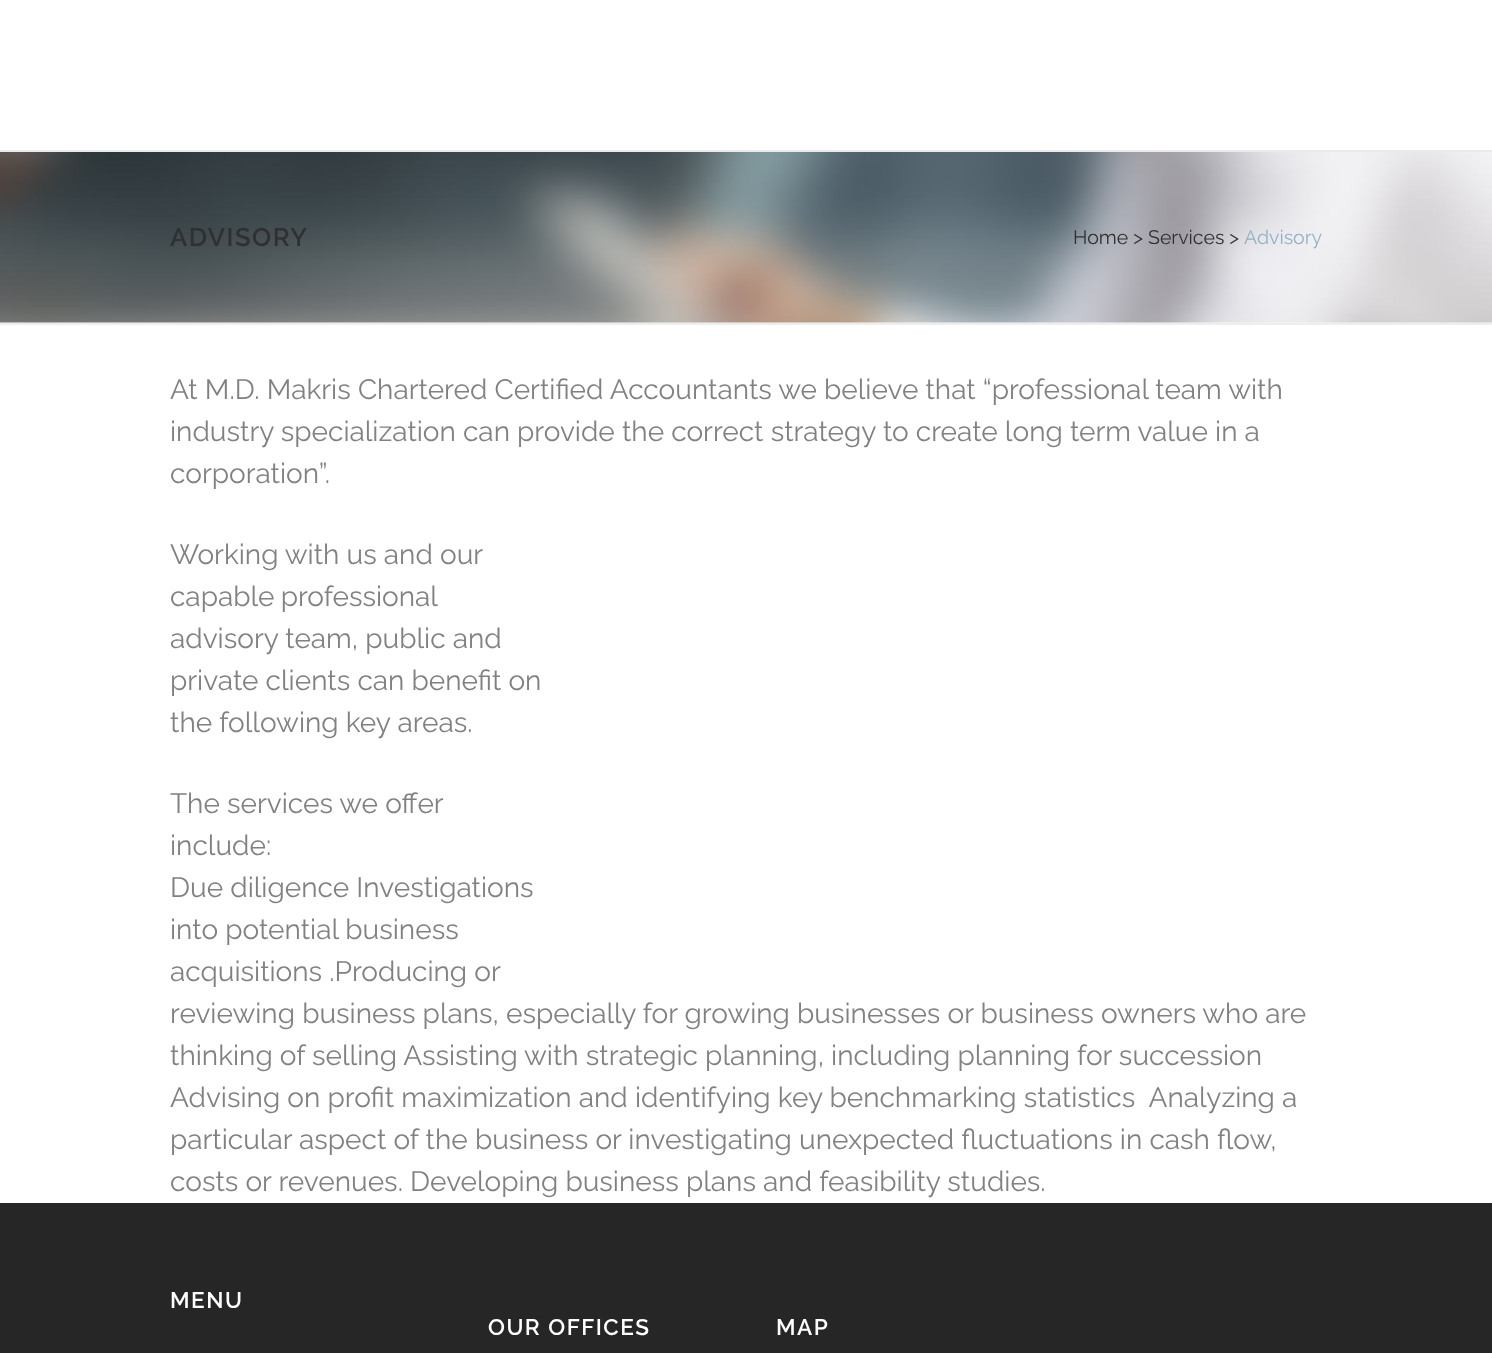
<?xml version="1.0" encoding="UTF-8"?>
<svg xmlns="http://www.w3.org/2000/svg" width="1492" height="1353">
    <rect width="100%" height="100%" fill="#FFFFFF"/>
    <rect x="0" y="150" width="1492" height="2" fill="#EAEAEA"/>
    <rect x="0" y="322" width="1492" height="1" fill="#F6F6F6"/>
    <rect x="0" y="323" width="1492" height="2" fill="#EEEEEE"/>
    <image x="0" y="152" width="1492" height="171" href="img_01.png"/>
    <text x="170" y="246" font-family="Raleway" font-size="25.5" font-weight="600" letter-spacing="1.5" fill="#303030">ADVISORY</text>
    <text x="1073" y="244" font-family="Raleway" font-size="19.5" fill="#303030">Home &gt; Services &gt;</text>
    <text x="1244" y="244" font-family="Raleway" font-size="19.5" fill="#91B2C3">Advisory</text>
    <text font-family="Raleway" font-size="28" fill="#818181">
        <tspan x="170" y="399">At M.D. Makris Chartered Certified Accountants we believe that “professional team with</tspan>
        <tspan x="170" y="441">industry specialization can provide the correct strategy to create long term value in a</tspan>
        <tspan x="170" y="483">corporation”.</tspan>
    </text>
    <text font-family="Raleway" font-size="28" fill="#818181">
        <tspan x="170" y="564">Working with us and our</tspan>
        <tspan x="170" y="606" word-spacing="-1">capable professional</tspan>
        <tspan x="170" y="648">advisory team, public and</tspan>
        <tspan x="170" y="690">private clients can benefit on</tspan>
        <tspan x="170" y="732">the following key areas.</tspan>
    </text>
    <text font-family="Raleway" font-size="28" fill="#818181" xml:space="preserve"><tspan x="170" y="813">The services we offer</tspan><tspan x="170" y="855">include:</tspan><tspan x="170" y="897">Due diligence Investigations</tspan><tspan x="170" y="939">into potential business</tspan><tspan x="170" y="981">acquisitions .Producing or</tspan><tspan x="170" y="1023">reviewing business plans, especially for growing businesses or business owners who are</tspan><tspan x="170" y="1065">thinking of selling Assisting with strategic planning, including planning for succession</tspan><tspan x="170" y="1107">Advising on profit maximization and identifying key benchmarking statistics  Analyzing a</tspan><tspan x="170" y="1149">particular aspect of the business or investigating unexpected fluctuations in cash flow,</tspan><tspan x="170" y="1191">costs or revenues. Developing business plans and feasibility studies.</tspan></text>
    <rect x="0" y="1203" width="1492" height="150" fill="#262626"/>
    <text x="170" y="1308" font-family="Raleway" font-size="22.5" font-weight="600" letter-spacing="1.5" fill="#FFFFFF">MENU</text>
    <text x="488" y="1335" font-family="Raleway" font-size="22.5" font-weight="600" letter-spacing="1.5" fill="#FFFFFF">OUR OFFICES</text>
    <text x="776" y="1335" font-family="Raleway" font-size="22.5" font-weight="600" letter-spacing="1.5" fill="#FFFFFF">MAP</text>
</svg>
